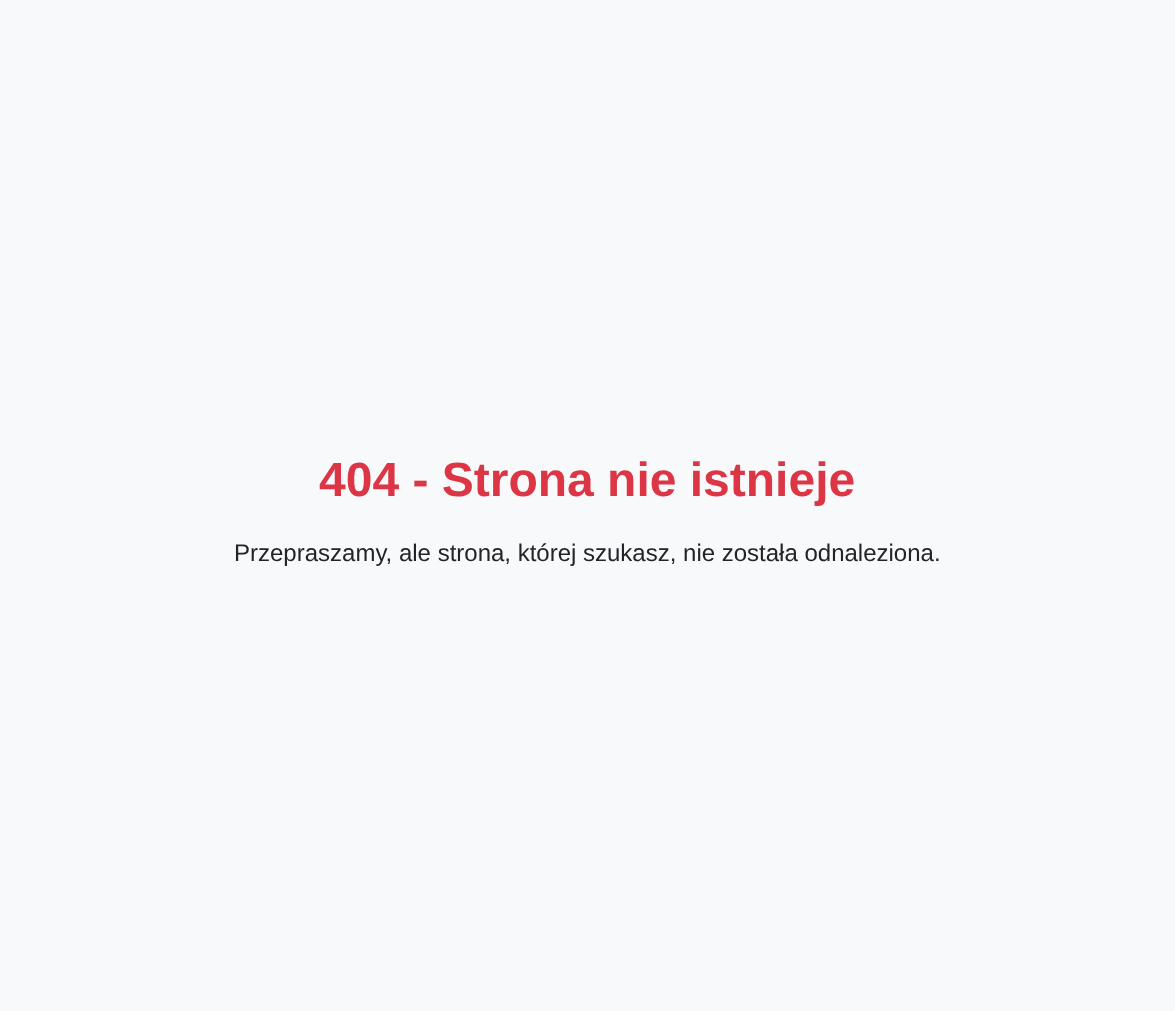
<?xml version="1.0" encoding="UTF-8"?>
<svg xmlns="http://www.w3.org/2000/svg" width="1175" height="1011">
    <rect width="100%" height="100%" fill="#F8F9FA"/>
    <text x="319" y="496" font-family="Liberation Sans" font-size="48" font-weight="700" fill="#DC3545">404 - Strona nie istnieje</text>
    <text x="234" y="561" font-family="Liberation Sans" font-size="24" fill="#212529">Przepraszamy, ale strona, której szukasz, nie została odnaleziona.</text>
</svg>
